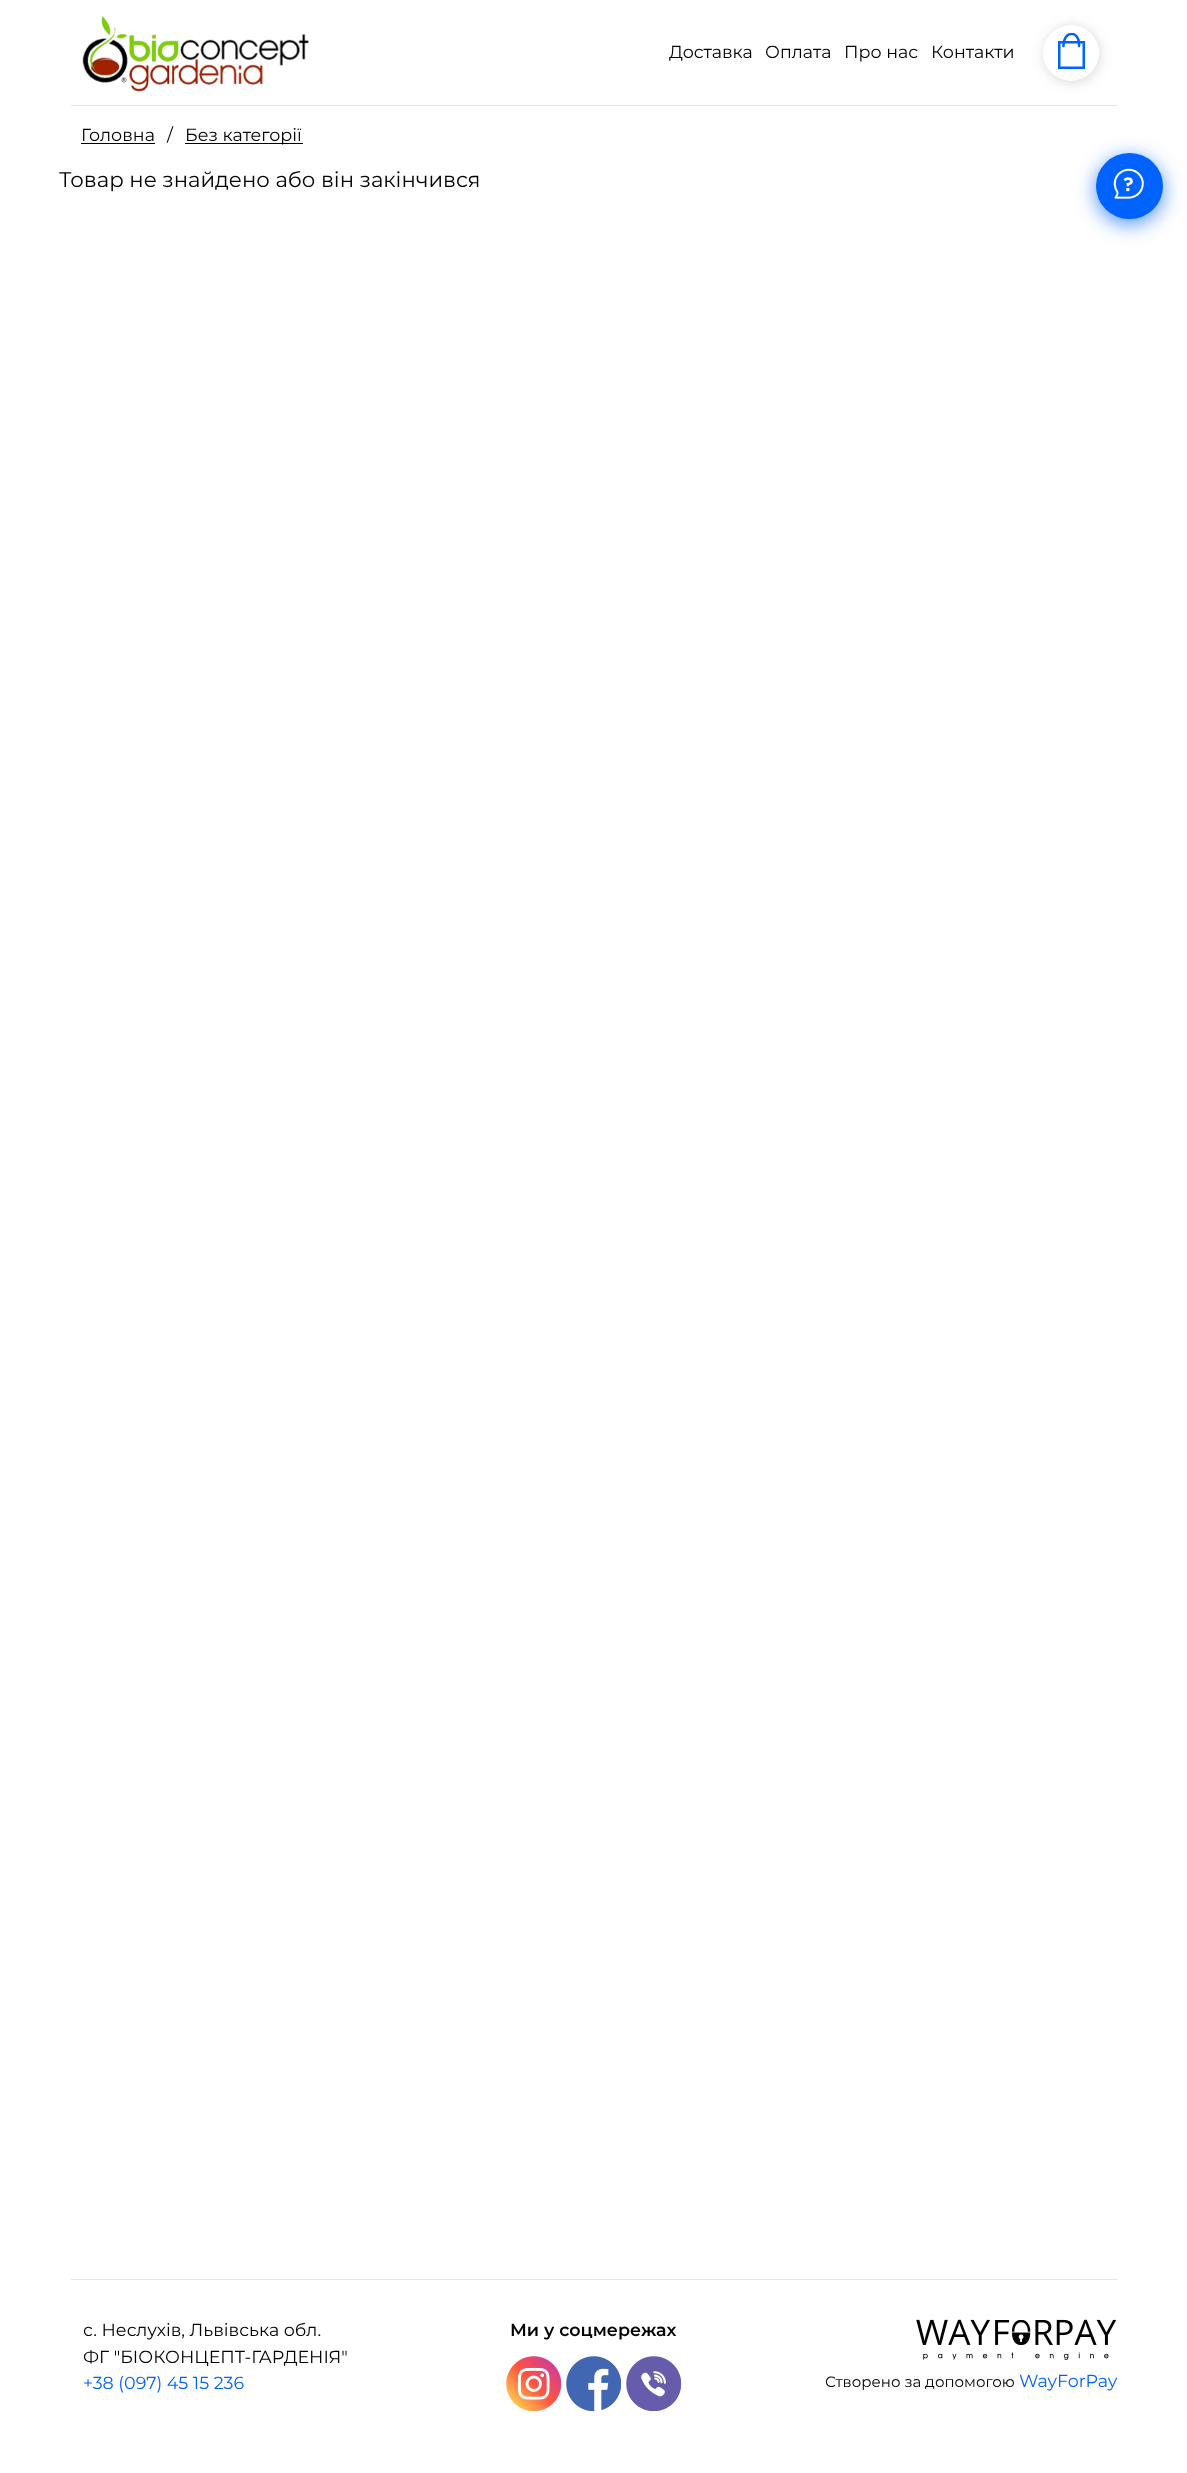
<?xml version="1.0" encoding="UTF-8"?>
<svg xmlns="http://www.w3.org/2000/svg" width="1187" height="2473">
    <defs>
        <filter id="blur1" x="-50%" y="-200%" width="200%" height="500%"><feGaussianBlur stdDeviation="6"/></filter>
        <clipPath id="clip1"><rect x="1058" y="33" width="27" height="36"/></clipPath>
        <filter id="blur2" x="-50%" y="-200%" width="200%" height="500%"><feGaussianBlur stdDeviation="10"/></filter>
    </defs>
    <rect width="100%" height="100%" fill="#FFFFFF"/>
    <rect x="71" y="105" width="1047" height="1" fill="#E6E6E6"/>
    <image x="82" y="15" width="227" height="77" href="img_01.png"/>
    <text x="669" y="58" font-family="Montserrat" font-size="17.5" fill="#000000">Доставка</text>
    <text x="765" y="58" font-family="Montserrat" font-size="17.5" fill="#000000">Оплата</text>
    <text x="844" y="58" font-family="Montserrat" font-size="17.5" fill="#000000">Про нас</text>
    <text x="931" y="58" font-family="Montserrat" font-size="17.5" fill="#000000">Контакти</text>
    <rect x="1044" y="26" width="56" height="57" rx="28" fill="#808080" fill-opacity="0.3" filter="url(#blur1)"/>
    <circle cx="1071" cy="53" r="28" fill="#FFFFFF"/>
    <rect x="1059.25" y="42.25" width="24.5" height="25.5" fill="none" stroke="#0062FF" stroke-width="2.5"/>
    <g clip-path="url(#clip1)">
        <path d="M 1079 46 C 1080 29.5 1063 30 1063.5 46" fill="none" stroke="#0062FF" stroke-width="2.5" stroke-linecap="round"/>
    </g>
    <text x="81" y="141" font-family="Montserrat" font-size="17.5" fill="#000000">Головна</text>
    <rect x="81" y="143" width="74" height="1" fill="#000000"/>
    <text x="167" y="141" font-family="Montserrat" font-size="17.5" fill="#000000">/</text>
    <rect x="185" y="143" width="118" height="1" fill="#000000"/>
    <text x="185" y="141" font-family="Montserrat" font-size="17.5" fill="#000000">Без категорії</text>
    <rect x="1096" y="158" width="67" height="66" rx="33" fill="#0062FF" fill-opacity="0.7" filter="url(#blur2)"/>
    <rect x="1096" y="153" width="67" height="66" rx="33" fill="#0062FF"/>
    <image x="1113" y="168" width="31" height="31" href="img_02.png"/>
    <text x="59" y="187" font-family="Montserrat" font-size="21.25" fill="#000000">Товар не знайдено або він закінчився</text>
    <rect x="71" y="2279" width="1047" height="1" fill="#E6E6E6"/>
    <text font-family="Montserrat" font-size="17.5" fill="#000000">
        <tspan x="83" y="2336">с. Неслухів, Львівська обл.</tspan>
        <tspan x="83" y="2363">ФГ "БІОКОНЦЕПТ-ГАРДЕНІЯ"</tspan>
    </text>
    <text x="83" y="2389" font-family="Montserrat" font-size="17.5" fill="#0062FF">+38 (097) 45 15 236</text>
    <text x="510" y="2336" font-family="Montserrat" font-size="17.5" font-weight="600" fill="#000000">Ми у соцмережах</text>
    <image x="506" y="2356" width="55" height="55" href="img_03.png"/>
    <image x="566" y="2356" width="55" height="55" href="img_04.png"/>
    <image x="626" y="2356" width="55" height="55" href="img_05.png"/>
    <image x="916" y="2319" width="200" height="41" href="img_06.png"/>
    <text x="825" y="2387" font-family="Montserrat" font-size="15" fill="#000000">Створено за допомогою</text>
    <text x="1019" y="2387" font-family="Montserrat" font-size="17.5" fill="#0062FF">WayForPay</text>
</svg>
